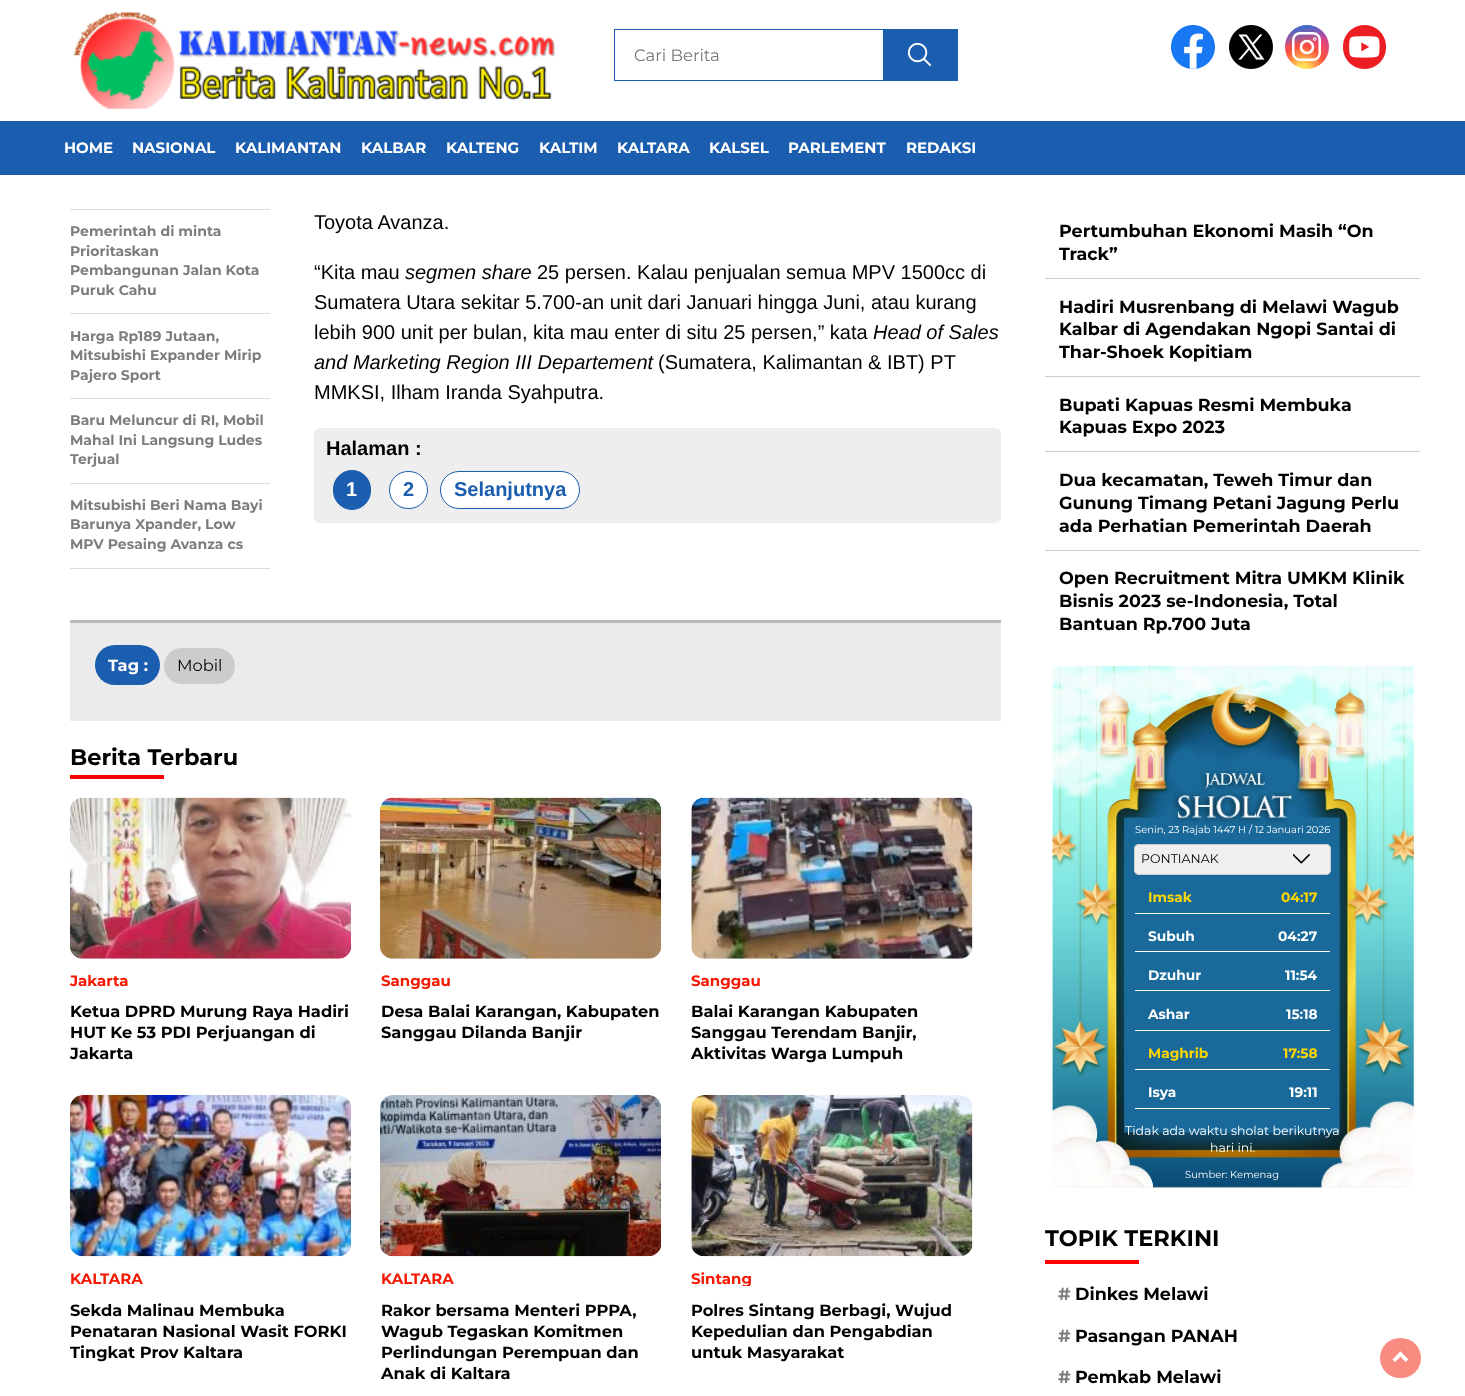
<?xml version="1.0" encoding="UTF-8"?>
<svg xmlns="http://www.w3.org/2000/svg" width="1465" height="1396">
    <defs>
        <radialGradient id="g1" gradientUnits="userSpaceOnUse" cx="1303" cy="69" r="44"><stop offset="0.1" stop-color="#FFDD55"/><stop offset="0.5" stop-color="#FF543E"/><stop offset="1" stop-color="#C837AB"/></radialGradient>
        <linearGradient id="g2" gradientUnits="userSpaceOnUse" x1="1285" y1="25" x2="1294" y2="69"><stop offset="0.1" stop-color="#3771C8"/><stop offset="0.5" stop-color="#3771C8" stop-opacity="0"/></linearGradient>
        <clipPath id="clip1"><rect x="691" y="1271" width="282" height="15"/></clipPath>
    </defs>
    <rect width="100%" height="100%" fill="#FFFFFF"/>
    <image x="73" y="12" width="483" height="97" href="img_01.png"/>
    <rect x="614.5" y="29.5" width="269" height="51" fill="none" stroke="#1B5DAF"/>
    <text x="634" y="61" font-family="Montserrat" font-size="16.5" fill="#757575">Cari Berita</text>
    <rect x="884" y="29" width="74" height="52" fill="#1B5DAF"/>
    <image x="907" y="42" width="25" height="25" href="img_02.png"/>
    <image x="1171" y="25" width="44" height="44" href="img_03.png"/>
    <image x="1229" y="25" width="44" height="44" href="img_04.png"/>
    <circle cx="1307" cy="47" r="22" fill="url(#g1)"/>
    <circle cx="1307" cy="47" r="22" fill="url(#g2)"/>
    <rect x="1293.25" y="33.25" width="26.5" height="26.5" rx="6.75" fill="none" stroke="#FFFFFF" stroke-width="2.5"/>
    <circle cx="1307" cy="47" r="6" fill="none" stroke="#FFFFFF" stroke-width="2.6"/>
    <circle cx="1314.7" cy="39.1" r="0.5" fill="none" stroke="#FFFFFF" stroke-width="2.6"/>
    <image x="1343" y="25" width="43" height="44" href="img_05.png"/>
    <rect x="0" y="121" width="1465" height="54" fill="#1B5DAF"/>
    <text x="64" y="153" font-family="Montserrat" font-size="15" font-weight="700" fill="#FFFFFF">HOME</text>
    <text x="132" y="153" font-family="Montserrat" font-size="15" font-weight="700" fill="#FFFFFF">NASIONAL</text>
    <text x="235" y="153" font-family="Montserrat" font-size="15" font-weight="700" fill="#FFFFFF">KALIMANTAN</text>
    <text x="361" y="153" font-family="Montserrat" font-size="15" font-weight="700" fill="#FFFFFF">KALBAR</text>
    <text x="446" y="153" font-family="Montserrat" font-size="15" font-weight="700" fill="#FFFFFF">KALTENG</text>
    <text x="539" y="153" font-family="Montserrat" font-size="15" font-weight="700" fill="#FFFFFF">KALTIM</text>
    <text x="617" y="153" font-family="Montserrat" font-size="15" font-weight="700" fill="#FFFFFF">KALTARA</text>
    <text x="709" y="153" font-family="Montserrat" font-size="15" font-weight="700" fill="#FFFFFF">KALSEL</text>
    <text x="788" y="153" font-family="Montserrat" font-size="15" font-weight="700" fill="#FFFFFF">PARLEMENT</text>
    <text x="906" y="153" font-family="Montserrat" font-size="15" font-weight="700" fill="#FFFFFF">REDAKSI</text>
    <rect x="70" y="209" width="200" height="1" fill="#DDDDDD"/>
    <rect x="70" y="313" width="200" height="1" fill="#DDDDDD"/>
    <text font-family="Montserrat" font-size="14" font-weight="700" fill="#7D7D7D">
        <tspan x="70" y="236">Pemerintah di minta</tspan>
        <tspan x="70" y="256">Prioritaskan</tspan>
        <tspan x="70" y="275">Pembangunan Jalan Kota</tspan>
        <tspan x="70" y="295">Puruk Cahu</tspan>
    </text>
    <rect x="70" y="398" width="200" height="1" fill="#DDDDDD"/>
    <text font-family="Montserrat" font-size="14" font-weight="700" fill="#7D7D7D">
        <tspan x="70" y="341">Harga Rp189 Jutaan,</tspan>
        <tspan x="70" y="360">Mitsubishi Expander Mirip</tspan>
        <tspan x="70" y="380">Pajero Sport</tspan>
    </text>
    <rect x="70" y="483" width="200" height="1" fill="#DDDDDD"/>
    <text font-family="Montserrat" font-size="14" font-weight="700" fill="#7D7D7D">
        <tspan x="70" y="425">Baru Meluncur di RI, Mobil</tspan>
        <tspan x="70" y="445">Mahal Ini Langsung Ludes</tspan>
        <tspan x="70" y="464">Terjual</tspan>
    </text>
    <rect x="70" y="568" width="200" height="1" fill="#DDDDDD"/>
    <text font-family="Montserrat" font-size="14" font-weight="700" fill="#7D7D7D">
        <tspan x="70" y="510">Mitsubishi Beri Nama Bayi</tspan>
        <tspan x="70" y="529">Barunya Xpander, Low</tspan>
        <tspan x="70" y="549">MPV Pesaing Avanza cs</tspan>
    </text>
    <text x="314" y="229" font-family="Liberation Sans" font-size="20" fill="#000000">Toyota Avanza.</text>
    <text x="314" y="279" font-family="Liberation Sans" font-size="20" fill="#000000">“Kita mau</text>
    <text x="405" y="279" font-family="Liberation Sans" font-size="20" font-style="italic" fill="#000000">segmen share</text>
    <text x="537" y="279" font-family="Liberation Sans" font-size="20" fill="#000000">25 persen. Kalau penjualan semua MPV 1500cc di</text>
    <text font-family="Liberation Sans" font-size="20" fill="#000000">
        <tspan x="314" y="309">Sumatera Utara sekitar 5.700-an unit dari Januari hingga Juni, atau kurang</tspan>
        <tspan x="314" y="339">lebih 900 unit per bulan, kita mau enter di situ 25 persen,” kata</tspan>
    </text>
    <text x="873" y="339" font-family="Liberation Sans" font-size="20" font-style="italic" fill="#000000">Head of Sales</text>
    <text x="314" y="369" font-family="Liberation Sans" font-size="20" font-style="italic" fill="#000000">and Marketing Region III Departement</text>
    <text x="658" y="369" font-family="Liberation Sans" font-size="20" fill="#000000">(Sumatera, Kalimantan &amp; IBT) PT</text>
    <text x="314" y="399" font-family="Liberation Sans" font-size="20" fill="#000000">MMKSI, Ilham Iranda Syahputra.</text>
    <rect x="314" y="428" width="687" height="95" rx="6" fill="#EEEEEE"/>
    <text x="326" y="455" font-family="Liberation Sans" font-size="20" font-weight="700" fill="#000000">Halaman :</text>
    <rect x="333.5" y="470.5" width="37" height="39" rx="18.5" fill="#1B5DAF" stroke="#1B5DAF"/>
    <text x="346" y="496" font-family="Liberation Sans" font-size="20" font-weight="700" fill="#FFFFFF">1</text>
    <rect x="389.5" y="471.5" width="38" height="37" rx="18.5" fill="#FFFFFF" stroke="#1B5DAF"/>
    <text x="403" y="496" font-family="Liberation Sans" font-size="20" font-weight="700" fill="#1B5DAF">2</text>
    <rect x="440.5" y="471.5" width="139" height="37" rx="18.5" fill="#FFFFFF" stroke="#1B5DAF"/>
    <text x="454" y="496" font-family="Liberation Sans" font-size="20" font-weight="700" fill="#1B5DAF">Selanjutnya</text>
    <rect x="70" y="623" width="931" height="98" fill="#EBEBEB"/>
    <rect x="70" y="620" width="931" height="3" fill="#B9B8B8"/>
    <rect x="95" y="645" width="65" height="40" rx="20" fill="#1B5DAF"/>
    <text x="108" y="671" font-family="Montserrat" font-size="16.25" font-weight="700" fill="#FFFFFF">Tag :</text>
    <rect x="164" y="648" width="71" height="36" rx="18" fill="#CCCCCC"/>
    <text x="177" y="671" font-family="Montserrat" font-size="16.25" fill="#000000">Mobil</text>
    <text x="70" y="765" font-family="Montserrat" font-size="22.5" font-weight="700" fill="#000000">Berita Terbaru</text>
    <rect x="70" y="775" width="94" height="4" fill="#FF0000"/>
    <image x="70" y="797" width="281" height="162" href="img_06.png"/>
    <text x="70" y="986" font-family="Montserrat" font-size="15" font-weight="700" fill="#F51700">Jakarta</text>
    <text font-family="Montserrat" font-size="16.25" font-weight="700" fill="#000000">
        <tspan x="70" y="1017">Ketua DPRD Murung Raya Hadiri</tspan>
        <tspan x="70" y="1038">HUT Ke 53 PDI Perjuangan di</tspan>
        <tspan x="70" y="1059">Jakarta</tspan>
    </text>
    <image x="380" y="797" width="281" height="162" href="img_07.png"/>
    <text x="381" y="986" font-family="Montserrat" font-size="15" font-weight="700" fill="#F51700">Sanggau</text>
    <text font-family="Montserrat" font-size="16.25" font-weight="700" fill="#000000">
        <tspan x="381" y="1017">Desa Balai Karangan, Kabupaten</tspan>
        <tspan x="381" y="1038">Sanggau Dilanda Banjir</tspan>
    </text>
    <image x="691" y="797" width="282" height="162" href="img_08.png"/>
    <text x="691" y="986" font-family="Montserrat" font-size="15" font-weight="700" fill="#F51700">Sanggau</text>
    <text font-family="Montserrat" font-size="16.25" font-weight="700" fill="#000000">
        <tspan x="691" y="1017">Balai Karangan Kabupaten</tspan>
        <tspan x="691" y="1038">Sanggau Terendam Banjir,</tspan>
        <tspan x="691" y="1059">Aktivitas Warga Lumpuh</tspan>
    </text>
    <image x="70" y="1095" width="281" height="162" href="img_09.png"/>
    <text x="70" y="1284" font-family="Montserrat" font-size="15" font-weight="700" fill="#F51700">KALTARA</text>
    <text font-family="Montserrat" font-size="16.25" font-weight="700" fill="#000000">
        <tspan x="70" y="1316">Sekda Malinau Membuka</tspan>
        <tspan x="70" y="1337">Penataran Nasional Wasit FORKI</tspan>
        <tspan x="70" y="1358">Tingkat Prov Kaltara</tspan>
    </text>
    <image x="380" y="1095" width="281" height="162" href="img_10.png"/>
    <text x="381" y="1284" font-family="Montserrat" font-size="15" font-weight="700" fill="#F51700">KALTARA</text>
    <text font-family="Montserrat" font-size="16.25" font-weight="700" fill="#000000">
        <tspan x="381" y="1316">Rakor bersama Menteri PPPA,</tspan>
        <tspan x="381" y="1337">Wagub Tegaskan Komitmen</tspan>
        <tspan x="381" y="1358">Perlindungan Perempuan dan</tspan>
        <tspan x="381" y="1379">Anak di Kaltara</tspan>
    </text>
    <image x="691" y="1095" width="282" height="162" href="img_11.png"/>
    <g clip-path="url(#clip1)">
        <text x="691" y="1284" font-family="Montserrat" font-size="15" font-weight="700" fill="#F51700">Sintang</text>
    </g>
    <text font-family="Montserrat" font-size="16.25" font-weight="700" fill="#000000">
        <tspan x="691" y="1316">Polres Sintang Berbagi, Wujud</tspan>
        <tspan x="691" y="1337">Kepedulian dan Pengabdian</tspan>
        <tspan x="691" y="1358">untuk Masyarakat</tspan>
    </text>
    <rect x="1045" y="278" width="375" height="1" fill="#CCCCCC"/>
    <text font-family="Montserrat" font-size="17.5" font-weight="700" fill="#000000">
        <tspan x="1059" y="237">Pertumbuhan Ekonomi Masih “On</tspan>
        <tspan x="1059" y="260">Track”</tspan>
    </text>
    <rect x="1045" y="376" width="375" height="1" fill="#CCCCCC"/>
    <text font-family="Montserrat" font-size="17.5" font-weight="700" fill="#000000">
        <tspan x="1059" y="313">Hadiri Musrenbang di Melawi Wagub</tspan>
        <tspan x="1059" y="335">Kalbar di Agendakan Ngopi Santai di</tspan>
        <tspan x="1059" y="358">Thar-Shoek Kopitiam</tspan>
    </text>
    <rect x="1045" y="451" width="375" height="1" fill="#CCCCCC"/>
    <text font-family="Montserrat" font-size="17.5" font-weight="700" fill="#000000">
        <tspan x="1059" y="411">Bupati Kapuas Resmi Membuka</tspan>
        <tspan x="1059" y="433">Kapuas Expo 2023</tspan>
    </text>
    <rect x="1045" y="550" width="375" height="1" fill="#CCCCCC"/>
    <text font-family="Montserrat" font-size="17.5" font-weight="700" fill="#000000">
        <tspan x="1059" y="486">Dua kecamatan, Teweh Timur dan</tspan>
        <tspan x="1059" y="509">Gunung Timang Petani Jagung Perlu</tspan>
        <tspan x="1059" y="532">ada Perhatian Pemerintah Daerah</tspan>
    </text>
    <text font-family="Montserrat" font-size="17.5" font-weight="700" fill="#000000">
        <tspan x="1059" y="584">Open Recruitment Mitra UMKM Klinik</tspan>
        <tspan x="1059" y="607">Bisnis 2023 se-Indonesia, Total</tspan>
        <tspan x="1059" y="630">Bantuan Rp.700 Juta</tspan>
    </text>
    <image x="1051" y="666" width="363" height="522" href="img_12.png"/>
    <text x="1135" y="833" font-family="Montserrat" font-size="10" fill="#FFFFFF">Senin, 23 Rajab 1447 H / 12 Januari 2026</text>
    <rect x="1134" y="844" width="197" height="31" rx="5" fill="#EFEFEF"/>
    <image x="1293" y="854" width="17" height="10" href="img_13.png"/>
    <rect x="1134.5" y="844.5" width="196" height="30" rx="4.5" fill="none" stroke="#CCCCCC"/>
    <text x="1141" y="863" font-family="Montserrat" font-size="12.5" fill="#000000">PONTIANAK</text>
    <rect x="1135" y="913" width="195" height="1" fill="#FFFFFF"/>
    <text x="1148" y="902" font-family="Montserrat" font-size="13.75" font-weight="700" fill="#FFD700">Imsak</text>
    <text x="1281" y="902" font-family="Montserrat" font-size="13.75" font-weight="700" fill="#FFD700">04:17</text>
    <rect x="1135" y="951" width="195" height="1" fill="#FFFFFF"/>
    <text x="1148" y="941" font-family="Montserrat" font-size="13.75" font-weight="700" fill="#FFFFFF">Subuh</text>
    <text x="1278" y="941" font-family="Montserrat" font-size="13.75" font-weight="700" fill="#FFFFFF">04:27</text>
    <rect x="1135" y="990" width="195" height="1" fill="#FFFFFF"/>
    <text x="1148" y="980" font-family="Montserrat" font-size="13.75" font-weight="700" fill="#FFFFFF">Dzuhur</text>
    <text x="1285" y="980" font-family="Montserrat" font-size="13.75" font-weight="700" fill="#FFFFFF">11:54</text>
    <rect x="1135" y="1030" width="195" height="1" fill="#FFFFFF"/>
    <text x="1148" y="1019" font-family="Montserrat" font-size="13.75" font-weight="700" fill="#FFFFFF">Ashar</text>
    <text x="1286" y="1019" font-family="Montserrat" font-size="13.75" font-weight="700" fill="#FFFFFF">15:18</text>
    <rect x="1135" y="1069" width="195" height="1" fill="#FFFFFF"/>
    <text x="1148" y="1058" font-family="Montserrat" font-size="13.75" font-weight="700" fill="#FFD700">Maghrib</text>
    <text x="1283" y="1058" font-family="Montserrat" font-size="13.75" font-weight="700" fill="#FFD700">17:58</text>
    <rect x="1135" y="1108" width="195" height="1" fill="#FFFFFF"/>
    <text x="1148" y="1097" font-family="Montserrat" font-size="13.75" font-weight="700" fill="#FFFFFF">Isya</text>
    <text x="1289" y="1097" font-family="Montserrat" font-size="13.75" font-weight="700" fill="#FFFFFF">19:11</text>
    <text x="1125" y="1135" font-family="Montserrat" font-size="12.5" fill="#FFFFFF">Tidak ada waktu sholat berikutnya</text>
    <text x="1210" y="1152" font-family="Montserrat" font-size="12.5" fill="#FFFFFF">hari ini.</text>
    <text x="1185" y="1178" font-family="Montserrat" font-size="10" fill="#FFFFFF">Sumber: Kemenag</text>
    <text x="1045" y="1246" font-family="Montserrat" font-size="22.5" font-weight="700" fill="#000000">TOPIK TERKINI</text>
    <rect x="1045" y="1260" width="94" height="4" fill="#FF0000"/>
    <text x="1058" y="1300" font-family="Montserrat" font-size="17.5" font-weight="700" fill="#7D7D7D">#</text>
    <text x="1075" y="1300" font-family="Montserrat" font-size="17.5" font-weight="700" fill="#000000">Dinkes Melawi</text>
    <text x="1058" y="1342" font-family="Montserrat" font-size="17.5" font-weight="700" fill="#7D7D7D">#</text>
    <text x="1075" y="1342" font-family="Montserrat" font-size="17.5" font-weight="700" fill="#000000">Pasangan PANAH</text>
    <text x="1058" y="1383" font-family="Montserrat" font-size="17.5" font-weight="700" fill="#7D7D7D">#</text>
    <text x="1075" y="1383" font-family="Montserrat" font-size="17.5" font-weight="700" fill="#000000">Pemkab Melawi</text>
    <rect x="1380" y="1338" width="41" height="40" rx="20" fill="#FA8B80"/>
    <path d="M 1395 1362 L 1392.5 1359.5 L 1400.5 1351.5 L 1403 1354 Z" fill="#FFFFFF"/>
    <path d="M 1405.5 1362 L 1398 1354 L 1400.5 1351.5 L 1408.5 1359.5 Z" fill="#FFFFFF"/>
</svg>
